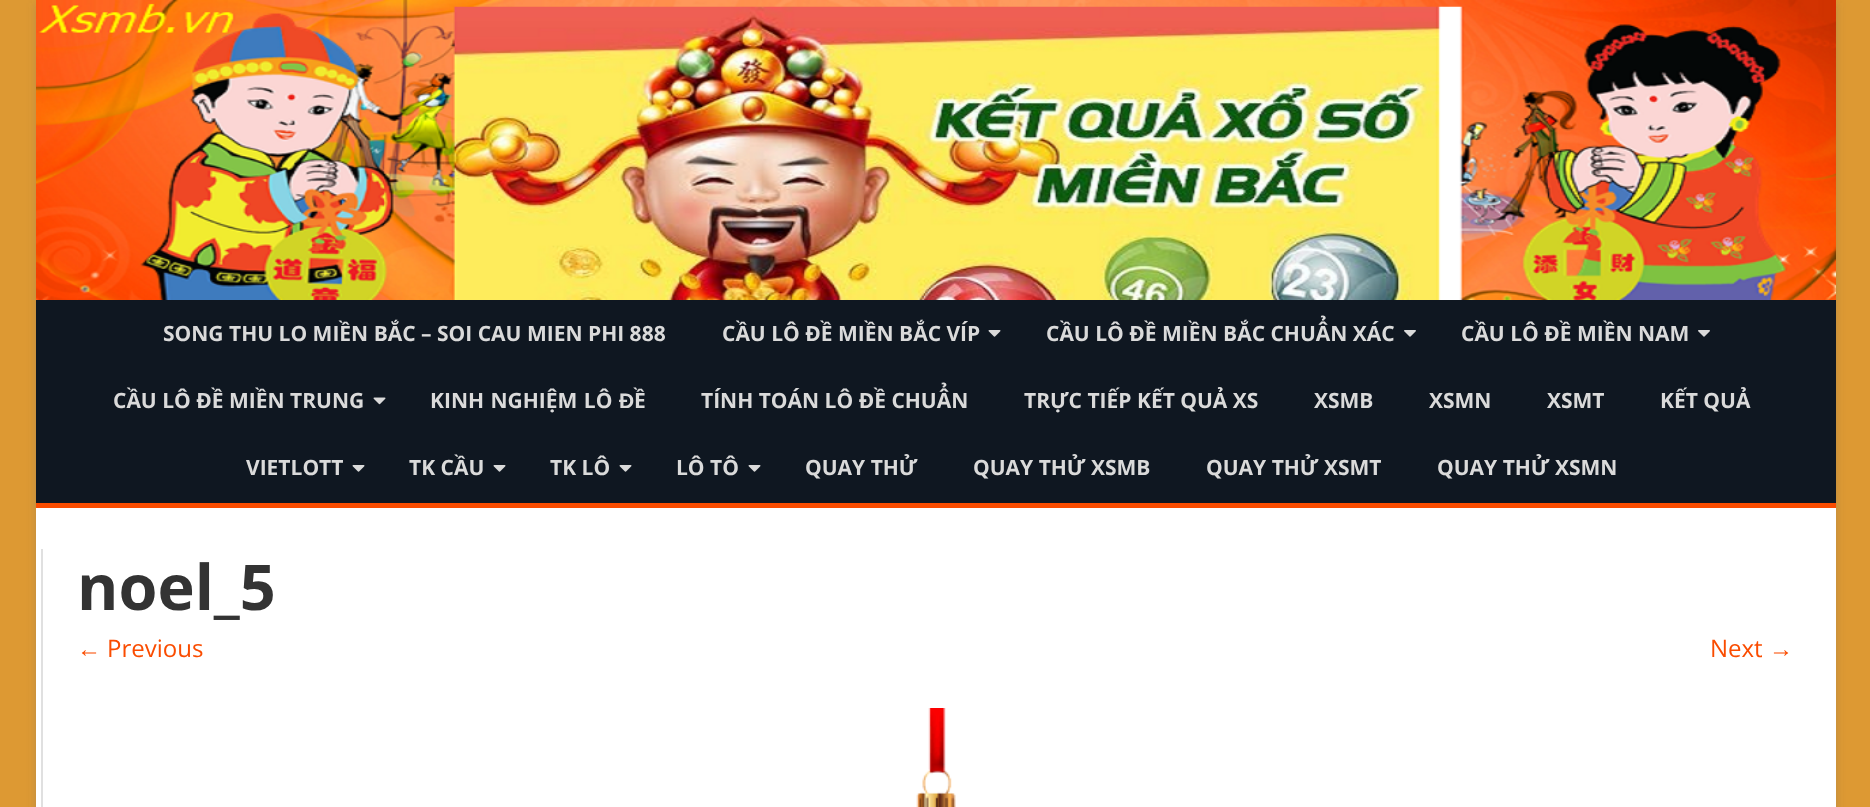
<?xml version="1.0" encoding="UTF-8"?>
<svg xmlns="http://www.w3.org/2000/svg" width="1870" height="807">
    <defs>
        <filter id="blur1" x="-50%" y="-200%" width="200%" height="500%"><feGaussianBlur stdDeviation="4.5"/></filter>
    </defs>
    <rect width="100%" height="100%" fill="#DD9933"/>
    <rect x="36" y="3" width="1800" height="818" fill="#646464" fill-opacity="0.3" filter="url(#blur1)"/>
    <rect x="36" y="508" width="1800" height="299" fill="#FFFFFF"/>
    <image x="36" y="0" width="1800" height="300" href="img_01.png"/>
    <rect x="36" y="300" width="1800" height="203" fill="#0F1721"/>
    <rect x="36" y="503" width="1800" height="5" fill="#FA4C00"/>
    <text x="163" y="341" font-family="Open Sans" font-size="21" font-weight="700" fill="#DADADA">SONG THU LO MIỀN BẮC – SOI CAU MIEN PHI 888</text>
    <text x="722" y="341" font-family="Open Sans" font-size="21" font-weight="700" fill="#DADADA">CẦU LÔ ĐỀ MIỀN BẮC VÍP</text>
    <image x="988" y="330" width="13" height="7" href="img_02.png"/>
    <text x="1046" y="341" font-family="Open Sans" font-size="21" font-weight="700" fill="#DADADA">CẦU LÔ ĐỀ MIỀN BẮC CHUẨN XÁC</text>
    <image x="1404" y="330" width="12" height="7" href="img_03.png"/>
    <text x="1461" y="341" font-family="Open Sans" font-size="21" font-weight="700" fill="#DADADA">CẦU LÔ ĐỀ MIỀN NAM</text>
    <image x="1698" y="330" width="12" height="7" href="img_03.png"/>
    <text x="113" y="408" font-family="Open Sans" font-size="21" font-weight="700" fill="#DADADA">CẦU LÔ ĐỀ MIỀN TRUNG</text>
    <image x="373" y="397" width="13" height="8" href="img_04.png"/>
    <text x="430" y="408" word-spacing="1" font-family="Open Sans" font-size="21" font-weight="700" fill="#DADADA">KINH NGHIỆM LÔ</text>
    <text x="619" y="408" font-family="Liberation Sans" font-size="21" font-weight="700" fill="#DADADA">Đ</text>
    <text x="634" y="408" font-family="Open Sans" font-size="21" font-weight="700" fill="#DADADA">Ề</text>
    <text x="701" y="408" font-family="Open Sans" font-size="21" font-weight="700" fill="#DADADA">TÍNH TOÁN LÔ ĐỀ CHUẨN</text>
    <text x="1024" y="408" font-family="Open Sans" font-size="21" font-weight="700" fill="#DADADA">TRỰC TIẾP KẾT QUẢ XS</text>
    <text x="1314" y="408" font-family="Open Sans" font-size="21" font-weight="700" fill="#DADADA">XSMB</text>
    <text x="1429" y="408" font-family="Open Sans" font-size="21" font-weight="700" fill="#DADADA">XSMN</text>
    <text x="1547" y="408" font-family="Open Sans" font-size="21" font-weight="700" fill="#DADADA">XSMT</text>
    <text x="1660" y="408" font-family="Open Sans" font-size="21" font-weight="700" fill="#DADADA">KẾT QUẢ</text>
    <text x="246" y="475" font-family="Open Sans" font-size="21" font-weight="700" fill="#DADADA">VIETLOTT</text>
    <image x="352" y="465" width="13" height="7" href="img_02.png"/>
    <text x="409" y="475" font-family="Open Sans" font-size="21" font-weight="700" fill="#DADADA">TK CẦU</text>
    <image x="493" y="465" width="13" height="7" href="img_02.png"/>
    <text x="550" y="475" font-family="Open Sans" font-size="21" font-weight="700" fill="#DADADA">TK LÔ</text>
    <image x="619" y="465" width="13" height="7" href="img_02.png"/>
    <text x="676" y="475" font-family="Open Sans" font-size="21" font-weight="700" fill="#DADADA">LÔ TÔ</text>
    <image x="748" y="465" width="13" height="7" href="img_02.png"/>
    <text x="805" y="475" font-family="Open Sans" font-size="21" font-weight="700" fill="#DADADA">QUAY THỬ</text>
    <text x="973" y="475" font-family="Open Sans" font-size="21" font-weight="700" fill="#DADADA">QUAY THỬ XSMB</text>
    <text x="1206" y="475" font-family="Open Sans" font-size="21" font-weight="700" fill="#DADADA">QUAY THỬ XSMT</text>
    <text x="1437" y="475" font-family="Open Sans" font-size="21" font-weight="700" fill="#DADADA">QUAY THỬ XSMN</text>
    <rect x="41" y="549" width="2" height="258" fill="#E0E0E0"/>
    <text x="77" y="610" font-family="Open Sans" font-size="63" font-weight="700" fill="#333333">noel_5</text>
    <text x="77" y="657" font-family="Liberation Sans" font-size="24" fill="#FA4C00">←</text>
    <text x="107" y="657" font-family="Open Sans" font-size="24" fill="#FA4C00">Previous</text>
    <text x="1710" y="657" font-family="Open Sans" font-size="24" fill="#FA4C00">Next</text>
    <text x="1769" y="657" font-family="Liberation Sans" font-size="24" fill="#FA4C00">→</text>
    <image x="916" y="708" width="40" height="99" href="img_05.png"/>
</svg>
